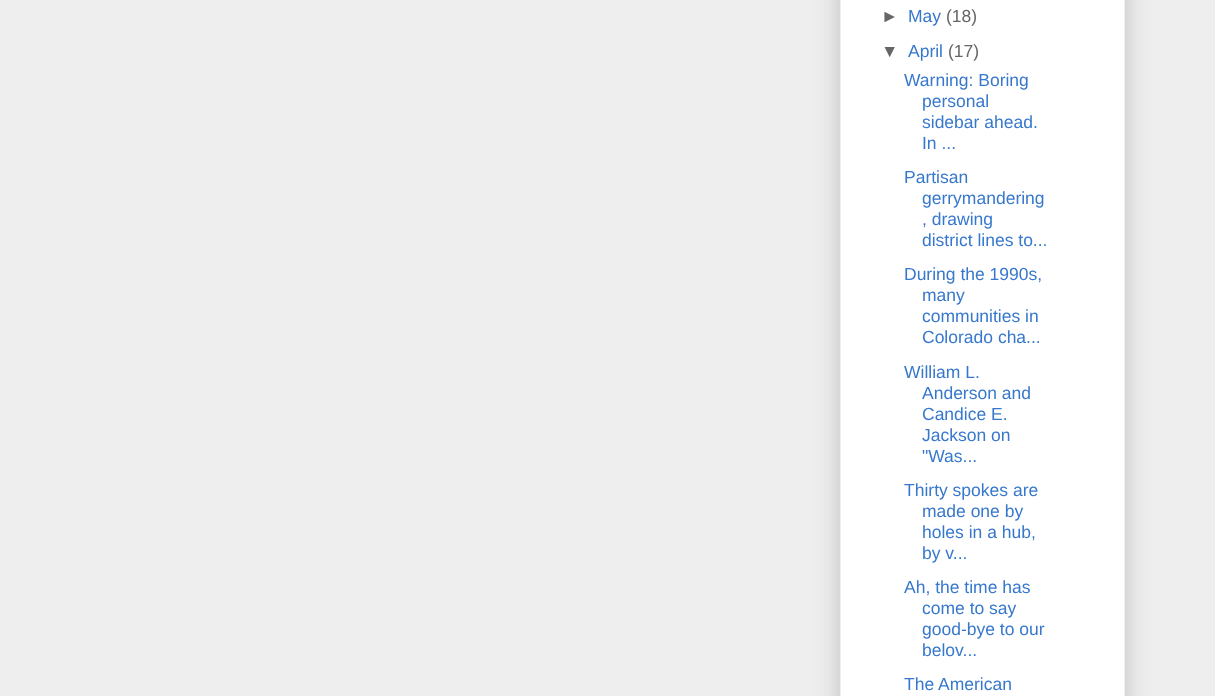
<?xml version="1.0" encoding="UTF-8"?>
<svg xmlns="http://www.w3.org/2000/svg" width="1215" height="696">
    <defs>
        <filter id="blur1" x="-50%" y="-200%" width="200%" height="500%"><feGaussianBlur stdDeviation="12.5"/></filter>
    </defs>
    <rect width="100%" height="100%" fill="#EEEEEE"/>
    <rect x="840" y="-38" width="285" height="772" fill="#000000" fill-opacity="0.2" filter="url(#blur1)"/>
    <rect x="840.5" y="-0.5" width="284" height="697" fill="#FFFFFF" stroke="#EEEEEE"/>
    <text x="881" y="22" font-family="Liberation Sans" font-size="17.5" fill="#666666">►</text>
    <text x="908" y="22" font-family="Liberation Sans" font-size="17.5" fill="#3778CD">May</text>
    <text x="946" y="22" font-family="Liberation Sans" font-size="17.5" fill="#666666">(18)</text>
    <text x="881" y="57" font-family="Liberation Sans" font-size="17.5" fill="#666666">▼</text>
    <text x="908" y="57" font-family="Liberation Sans" font-size="17.5" fill="#3778CD">April</text>
    <text x="948" y="57" font-family="Liberation Sans" font-size="17.5" fill="#666666">(17)</text>
    <text x="904" y="86" font-family="Liberation Sans" font-size="17.5" fill="#3778CD">Warning: Boring</text>
    <text font-family="Liberation Sans" font-size="17.5" fill="#3778CD">
        <tspan x="922" y="107">personal</tspan>
        <tspan x="922" y="128">sidebar ahead.</tspan>
        <tspan x="922" y="149">In ...</tspan>
    </text>
    <text x="904" y="183" font-family="Liberation Sans" font-size="17.5" fill="#3778CD">Partisan</text>
    <text font-family="Liberation Sans" font-size="17.5" fill="#3778CD">
        <tspan x="922" y="204">gerrymandering</tspan>
        <tspan x="922" y="225">, drawing</tspan>
        <tspan x="922" y="246">district lines to...</tspan>
    </text>
    <text x="904" y="280" font-family="Liberation Sans" font-size="17.5" fill="#3778CD">During the 1990s,</text>
    <text font-family="Liberation Sans" font-size="17.5" fill="#3778CD">
        <tspan x="922" y="301">many</tspan>
        <tspan x="922" y="322">communities in</tspan>
        <tspan x="922" y="343">Colorado cha...</tspan>
    </text>
    <text x="904" y="378" font-family="Liberation Sans" font-size="17.5" fill="#3778CD">William L.</text>
    <text font-family="Liberation Sans" font-size="17.5" fill="#3778CD">
        <tspan x="922" y="399">Anderson and</tspan>
        <tspan x="922" y="420">Candice E.</tspan>
        <tspan x="922" y="441">Jackson on</tspan>
        <tspan x="922" y="462">"Was...</tspan>
    </text>
    <text x="904" y="496" font-family="Liberation Sans" font-size="17.5" fill="#3778CD">Thirty spokes are</text>
    <text font-family="Liberation Sans" font-size="17.5" fill="#3778CD">
        <tspan x="922" y="517">made one by</tspan>
        <tspan x="922" y="538">holes in a hub,</tspan>
        <tspan x="922" y="559">by v...</tspan>
    </text>
    <text x="904" y="593" font-family="Liberation Sans" font-size="17.5" fill="#3778CD">Ah, the time has</text>
    <text font-family="Liberation Sans" font-size="17.5" fill="#3778CD">
        <tspan x="922" y="614">come to say</tspan>
        <tspan x="922" y="635">good-bye to our</tspan>
        <tspan x="922" y="656">belov...</tspan>
    </text>
    <text x="904" y="690" font-family="Liberation Sans" font-size="17.5" fill="#3778CD">The American</text>
</svg>
